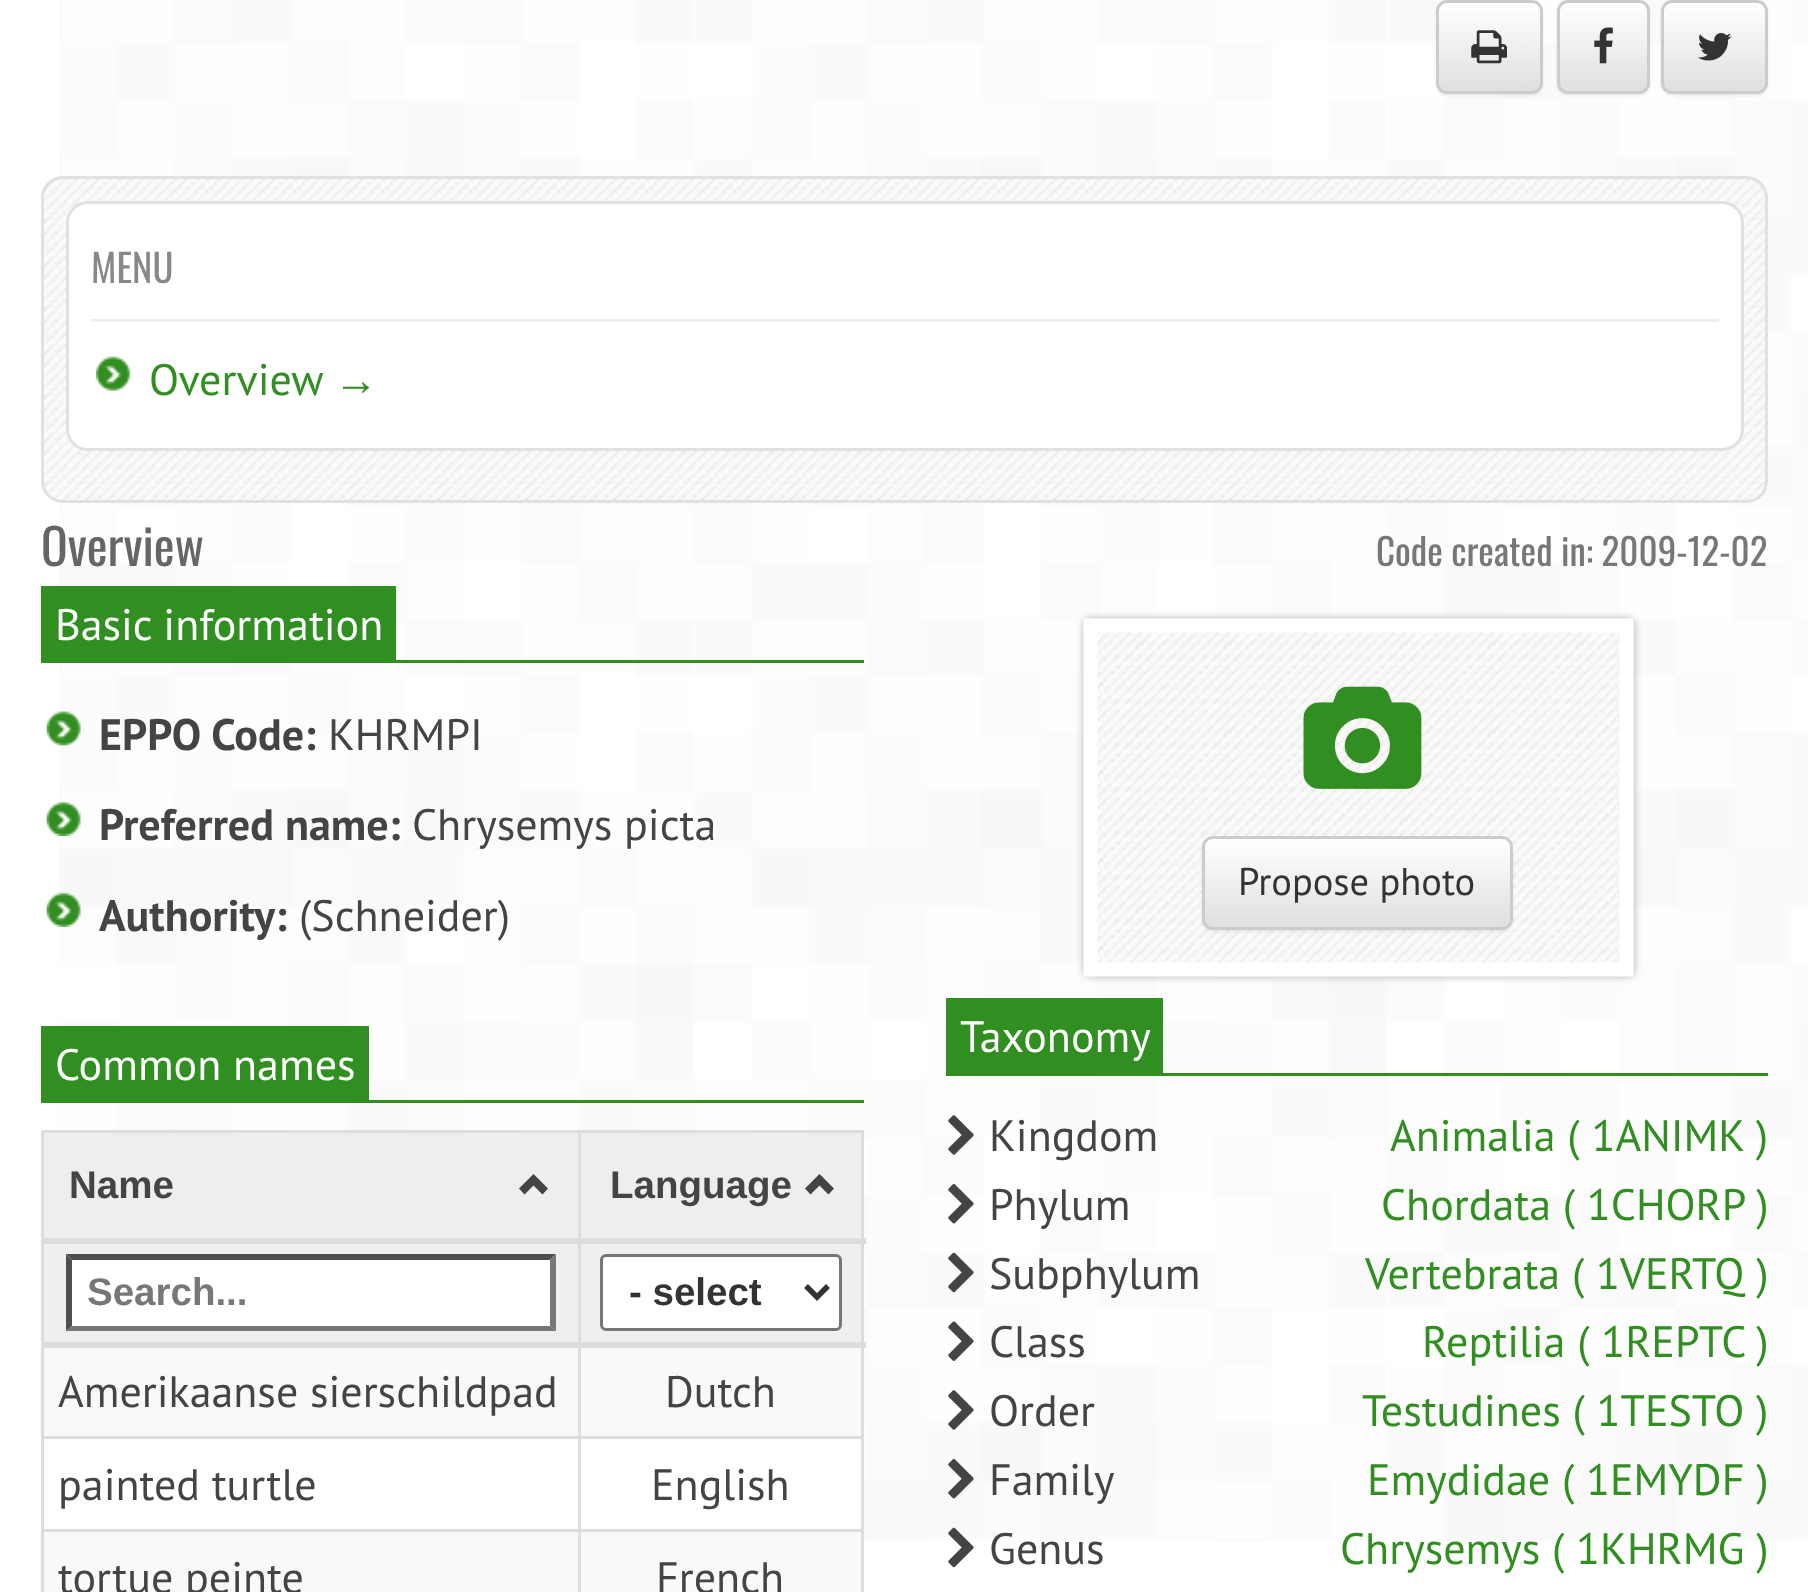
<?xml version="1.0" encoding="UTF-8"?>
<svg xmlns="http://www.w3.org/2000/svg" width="1808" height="1592">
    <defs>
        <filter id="blur1" x="-50%" y="-200%" width="200%" height="500%"><feGaussianBlur stdDeviation="1.5"/></filter>
        <clipPath id="clip1"><rect x="1436" y="0" width="107" height="94" rx="11"/></clipPath>
        <linearGradient id="g1" gradientUnits="userSpaceOnUse" x1="1489" y1="2.7" x2="1489" y2="91"><stop offset="0" stop-color="#FFFFFF"/><stop offset="1" stop-color="#E0E0E0"/></linearGradient>
        <clipPath id="clip2"><rect x="1557" y="0" width="93" height="94" rx="11"/></clipPath>
        <linearGradient id="g2" gradientUnits="userSpaceOnUse" x1="1603" y1="2.7" x2="1603" y2="91"><stop offset="0" stop-color="#FFFFFF"/><stop offset="1" stop-color="#E0E0E0"/></linearGradient>
        <clipPath id="clip3"><rect x="1661" y="0" width="107" height="94" rx="11"/></clipPath>
        <linearGradient id="g3" gradientUnits="userSpaceOnUse" x1="1715" y1="2.7" x2="1715" y2="91"><stop offset="0" stop-color="#FFFFFF"/><stop offset="1" stop-color="#E0E0E0"/></linearGradient>
        <filter id="blur2" x="-50%" y="-200%" width="200%" height="500%"><feGaussianBlur stdDeviation="4"/></filter>
        <clipPath id="clip4"><rect x="1202" y="836" width="311" height="94" rx="11"/></clipPath>
        <linearGradient id="g4" gradientUnits="userSpaceOnUse" x1="1357" y1="839" x2="1357" y2="927"><stop offset="0" stop-color="#FFFFFF"/><stop offset="1" stop-color="#E0E0E0"/></linearGradient>
    </defs>
    <rect width="100%" height="100%" fill="#FFFFFF"/>
    <image x="59" y="0" width="1749" height="1541" href="img_01.png"/>
    <rect x="1436" y="3" width="107" height="93" rx="11" fill="#000000" fill-opacity="0.07" filter="url(#blur1)"/>
    <g clip-path="url(#clip1)">
        <rect x="1436" y="3" width="107" height="88" fill="url(#g1)"/>
    </g>
    <rect x="1437.5" y="1.5" width="104" height="91" rx="9.5" fill="none" stroke="#CCCCCC" stroke-width="3"/>
    <image x="1471" y="30" width="36" height="34" href="img_02.png"/>
    <rect x="1557" y="3" width="93" height="93" rx="11" fill="#000000" fill-opacity="0.07" filter="url(#blur1)"/>
    <g clip-path="url(#clip2)">
        <rect x="1557" y="3" width="93" height="88" fill="url(#g2)"/>
    </g>
    <rect x="1558.5" y="1.5" width="90" height="91" rx="9.5" fill="none" stroke="#CCCCCC" stroke-width="3"/>
    <image x="1594" y="27" width="19" height="37" href="img_03.png"/>
    <rect x="1661" y="3" width="107" height="93" rx="11" fill="#000000" fill-opacity="0.07" filter="url(#blur1)"/>
    <g clip-path="url(#clip3)">
        <rect x="1661" y="3" width="107" height="88" fill="url(#g3)"/>
    </g>
    <rect x="1662.5" y="1.5" width="104" height="91" rx="9.5" fill="none" stroke="#CCCCCC" stroke-width="3"/>
    <image x="1698" y="33" width="34" height="28" href="img_04.png"/>
    <image x="41" y="176" width="1727" height="327" href="img_05.png"/>
    <rect x="42.5" y="177.5" width="1724" height="324" rx="20.5" fill="none" stroke="#E1E1E1" stroke-width="3"/>
    <rect x="67.5" y="202.5" width="1675" height="247" rx="20.5" fill="#FFFFFF" stroke="#E1E1E1" stroke-width="3"/>
    <rect x="91" y="319" width="1628" height="3" fill="#EEEEEE"/>
    <text x="91" y="283" font-family="Oswald" font-size="38.5" fill="#888888">MENU</text>
    <image x="96" y="356" width="35" height="35" href="img_06.png"/>
    <text x="149" y="395" font-family="PT Sans" font-size="44" fill="#318E20">Overview</text>
    <text x="334" y="395" font-family="Liberation Sans" font-size="44" fill="#318E20">→</text>
    <text x="41" y="566" font-family="Oswald" font-size="49.5" fill="#666666">Overview</text>
    <text x="1376" y="566" font-family="Oswald" font-size="37.1" fill="#777777">Code created in: 2009-12-02</text>
    <rect x="396" y="660" width="468" height="3" fill="#318E20"/>
    <rect x="41" y="586" width="355" height="77" fill="#318E20"/>
    <text x="55" y="640" font-family="PT Sans" font-size="44" fill="#FFFFFF">Basic information</text>
    <image x="46" y="711" width="35" height="35" href="img_07.png"/>
    <text x="99" y="750" font-family="PT Sans" font-size="44" font-weight="700" fill="#444444">EPPO Code:</text>
    <text x="328" y="750" font-family="PT Sans" font-size="44" fill="#444444">KHRMPI</text>
    <image x="46" y="802" width="35" height="34" href="img_08.png"/>
    <text x="99" y="840" font-family="PT Sans" font-size="44" font-weight="700" fill="#444444">Preferred name:</text>
    <text x="412" y="840" font-family="PT Sans" font-size="44" fill="#444444">Chrysemys picta</text>
    <image x="46" y="892" width="35" height="35" href="img_09.png"/>
    <text x="99" y="931" font-family="PT Sans" font-size="44" font-weight="700" fill="#444444">Authority:</text>
    <text x="299" y="931" font-family="PT Sans" font-size="44" fill="#444444">(Schneider)</text>
    <rect x="369" y="1100" width="495" height="3" fill="#318E20"/>
    <rect x="41" y="1026" width="328" height="77" fill="#318E20"/>
    <text x="55" y="1080" font-family="PT Sans" font-size="44" fill="#FFFFFF">Common names</text>
    <rect x="41" y="1130" width="823" height="3" fill="#DDDDDD"/>
    <rect x="861" y="1130" width="3" height="462" fill="#DDDDDD"/>
    <rect x="41" y="1130" width="3" height="462" fill="#DDDDDD"/>
    <rect x="44" y="1133" width="534" height="105" fill="#EEEEEE"/>
    <text x="69" y="1198" font-family="Liberation Sans" font-size="38.5" font-weight="700" fill="#444444">Name</text>
    <path d="M 519 1188.5 L 524.5 1194.5 L 533.5 1185.5 L 542.5 1194.5 L 548 1188.5 L 533.5 1174 Z" fill="#444444"/>
    <rect x="581" y="1133" width="280" height="105" fill="#EEEEEE"/>
    <rect x="44" y="1244" width="817" height="98" fill="#EFEFEF"/>
    <rect x="578" y="1436" width="286" height="3" fill="#DDDDDD"/>
    <rect x="578" y="1529" width="286" height="3" fill="#DDDDDD"/>
    <rect x="578" y="1529" width="3" height="63" fill="#DDDDDD"/>
    <rect x="41" y="1529" width="539" height="3" fill="#DDDDDD"/>
    <rect x="578" y="1436" width="3" height="96" fill="#DDDDDD"/>
    <rect x="41" y="1436" width="539" height="3" fill="#DDDDDD"/>
    <rect x="578" y="1130" width="3" height="308" fill="#DDDDDD"/>
    <rect x="41" y="1238" width="825" height="6" fill="#DDDDDD"/>
    <text x="610" y="1198" font-family="Liberation Sans" font-size="38.5" font-weight="700" fill="#444444">Language</text>
    <path d="M 805 1188.5 L 810.5 1194.5 L 819.5 1185.5 L 828.5 1194.5 L 834 1188.5 L 819.5 1174 Z" fill="#444444"/>
    <rect x="66" y="1254" width="490" height="77" fill="#FFFFFF"/>
    <path d="M 66 1254 H 556 L 550 1260 H 72 Z" fill="#4F4F4F"/>
    <path d="M 556 1254 V 1331 L 550 1326 V 1260 Z" fill="#767676"/>
    <path d="M 556 1331 H 66 L 72 1326 H 550 Z" fill="#767676"/>
    <path d="M 66 1331 V 1254 L 72 1260 V 1326 Z" fill="#4F4F4F"/>
    <text x="87" y="1305" font-family="Liberation Sans" font-size="38.5" font-weight="700" fill="#777777">Search...</text>
    <rect x="41" y="1342" width="825" height="6" fill="#DDDDDD"/>
    <rect x="601.5" y="1255.5" width="239" height="74" rx="4.5" fill="#FFFFFF" stroke="#767676" stroke-width="3"/>
    <path d="M 806 1286 L 817 1297 L 828 1286" fill="none" stroke="#333333" stroke-width="5.5"/>
    <text x="629" y="1305" font-family="Liberation Sans" font-size="38.5" font-weight="700" fill="#333333">- select</text>
    <rect x="44" y="1348" width="534" height="88" fill="#F9F9F9"/>
    <text x="58" y="1407" font-family="PT Sans" font-size="44" fill="#444444">Amerikaanse sierschildpad</text>
    <rect x="581" y="1348" width="280" height="88" fill="#F9F9F9"/>
    <text x="665" y="1407" font-family="PT Sans" font-size="44" fill="#444444">Dutch</text>
    <rect x="59" y="1439" width="519" height="90" fill="#FFFFFF"/>
    <text x="58" y="1500" font-family="PT Sans" font-size="44" fill="#444444">painted turtle</text>
    <rect x="581" y="1439" width="280" height="90" fill="#FFFFFF"/>
    <text x="651" y="1500" font-family="PT Sans" font-size="44" fill="#444444">English</text>
    <rect x="44" y="1532" width="534" height="60" fill="#F9F9F9"/>
    <text x="58" y="1593" font-family="PT Sans" font-size="44" fill="#444444">tortue peinte</text>
    <rect x="581" y="1532" width="280" height="60" fill="#F9F9F9"/>
    <text x="656" y="1593" font-family="PT Sans" font-size="44" fill="#444444">French</text>
    <rect x="1084" y="619" width="550" height="357" rx="6" fill="#AAAAAA" filter="url(#blur2)"/>
    <rect x="1084" y="619" width="550" height="357" rx="6" fill="#EEEEEE"/>
    <image x="1083" y="622" width="551" height="351" href="img_10.png"/>
    <path d="M 1090.5 625.5 H 1626.5 V 969.5 H 1090.5 Z" fill="none" stroke="#FFFFFF" stroke-width="13.8"/>
    <image x="1303" y="686" width="119" height="103" href="img_11.png"/>
    <rect x="1202" y="839" width="311" height="93" rx="11" fill="#000000" fill-opacity="0.07" filter="url(#blur1)"/>
    <g clip-path="url(#clip4)">
        <rect x="1202" y="839" width="311" height="88" fill="url(#g4)"/>
    </g>
    <rect x="1203.5" y="837.5" width="308" height="91" rx="9.5" fill="none" stroke="#CCCCCC" stroke-width="3"/>
    <text x="1238" y="895" font-family="PT Sans" font-size="38.5" fill="#333333">Propose photo</text>
    <rect x="946" y="1073" width="822" height="3" fill="#318E20"/>
    <rect x="946" y="998" width="217" height="75" fill="#318E20"/>
    <text x="960" y="1052" font-family="PT Sans" font-size="44" fill="#FFFFFF">Taxonomy</text>
    <image x="948" y="1115" width="26" height="40" href="img_12.png"/>
    <text x="989" y="1151" font-family="PT Sans" font-size="44" fill="#444444">Kingdom</text>
    <text x="1390" y="1151" font-family="PT Sans" font-size="44" fill="#318E20">Animalia ( 1ANIMK )</text>
    <image x="948" y="1183" width="26" height="41" href="img_13.png"/>
    <text x="989" y="1220" font-family="PT Sans" font-size="44" fill="#444444">Phylum</text>
    <text x="1381" y="1220" font-family="PT Sans" font-size="44" fill="#318E20">Chordata ( 1CHORP )</text>
    <image x="948" y="1252" width="26" height="41" href="img_14.png"/>
    <text x="989" y="1289" font-family="PT Sans" font-size="44" fill="#444444">Subphylum</text>
    <text x="1365" y="1289" font-family="PT Sans" font-size="44" fill="#318E20">Vertebrata ( 1VERTQ )</text>
    <image x="948" y="1321" width="26" height="40" href="img_15.png"/>
    <text x="989" y="1357" font-family="PT Sans" font-size="44" fill="#444444">Class</text>
    <text x="1422" y="1357" font-family="PT Sans" font-size="44" fill="#318E20">Reptilia ( 1REPTC )</text>
    <image x="948" y="1390" width="26" height="40" href="img_16.png"/>
    <text x="989" y="1426" font-family="PT Sans" font-size="44" fill="#444444">Order</text>
    <text x="1362" y="1426" font-family="PT Sans" font-size="44" fill="#318E20">Testudines ( 1TESTO )</text>
    <image x="948" y="1458" width="26" height="41" href="img_17.png"/>
    <text x="989" y="1495" font-family="PT Sans" font-size="44" fill="#444444">Family</text>
    <text x="1367" y="1495" font-family="PT Sans" font-size="44" fill="#318E20">Emydidae ( 1EMYDF )</text>
    <image x="948" y="1527" width="26" height="41" href="img_18.png"/>
    <text x="989" y="1564" font-family="PT Sans" font-size="44" fill="#444444">Genus</text>
    <text x="1340" y="1564" font-family="PT Sans" font-size="44" fill="#318E20">Chrysemys ( 1KHRMG )</text>
</svg>
